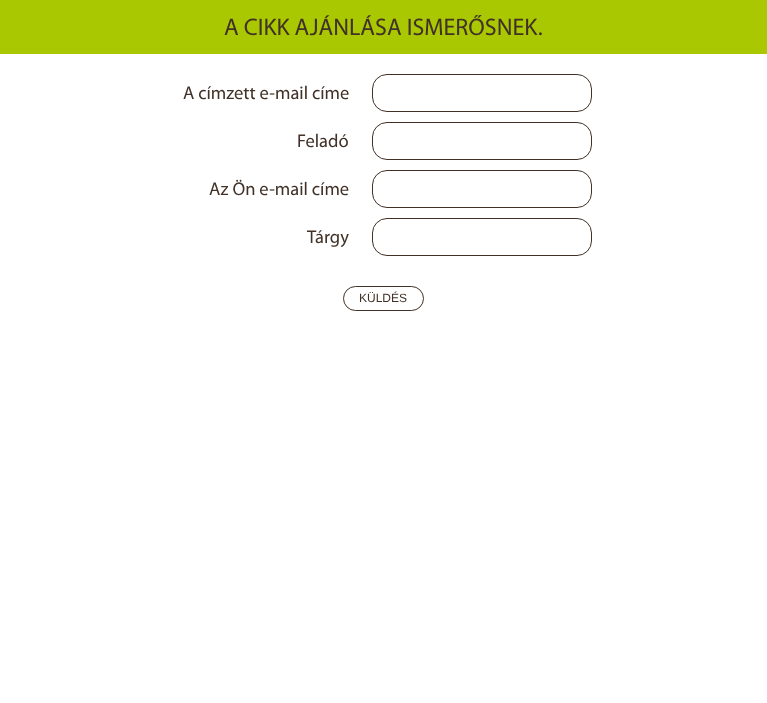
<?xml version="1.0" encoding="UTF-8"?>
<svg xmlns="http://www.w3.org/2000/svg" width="767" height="703">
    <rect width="100%" height="100%" fill="#FFFFFF"/>
    <rect x="0" y="0" width="767" height="54" fill="#A9C801"/>
    <text x="224" y="35" font-family="Myriad" font-size="24" fill="#413127">A CIKK AJÁNLÁSA ISMERŐSNEK.</text>
    <text x="183" y="99" font-family="Myriad" font-size="18.5" fill="#413127">A címzett e-mail címe</text>
    <rect x="372.5" y="74.5" width="219" height="37" rx="14.5" fill="none" stroke="#413127"/>
    <text x="297" y="147" font-family="Myriad" font-size="18.5" fill="#413127">Feladó</text>
    <rect x="372.5" y="122.5" width="219" height="37" rx="14.5" fill="none" stroke="#413127"/>
    <text x="209" y="195" font-family="Myriad" font-size="18.5" fill="#413127">Az Ön e-mail címe</text>
    <rect x="372.5" y="170.5" width="219" height="37" rx="14.5" fill="none" stroke="#413127"/>
    <text x="307" y="243" font-family="Myriad" font-size="18.5" fill="#413127">Tárgy</text>
    <rect x="372.5" y="218.5" width="219" height="37" rx="14.5" fill="none" stroke="#413127"/>
    <rect x="343.5" y="286.5" width="80" height="24" rx="12" fill="none" stroke="#413127"/>
    <text x="359" y="302" font-family="Liberation Sans" font-size="12" fill="#413127">KÜLDÉS</text>
</svg>
